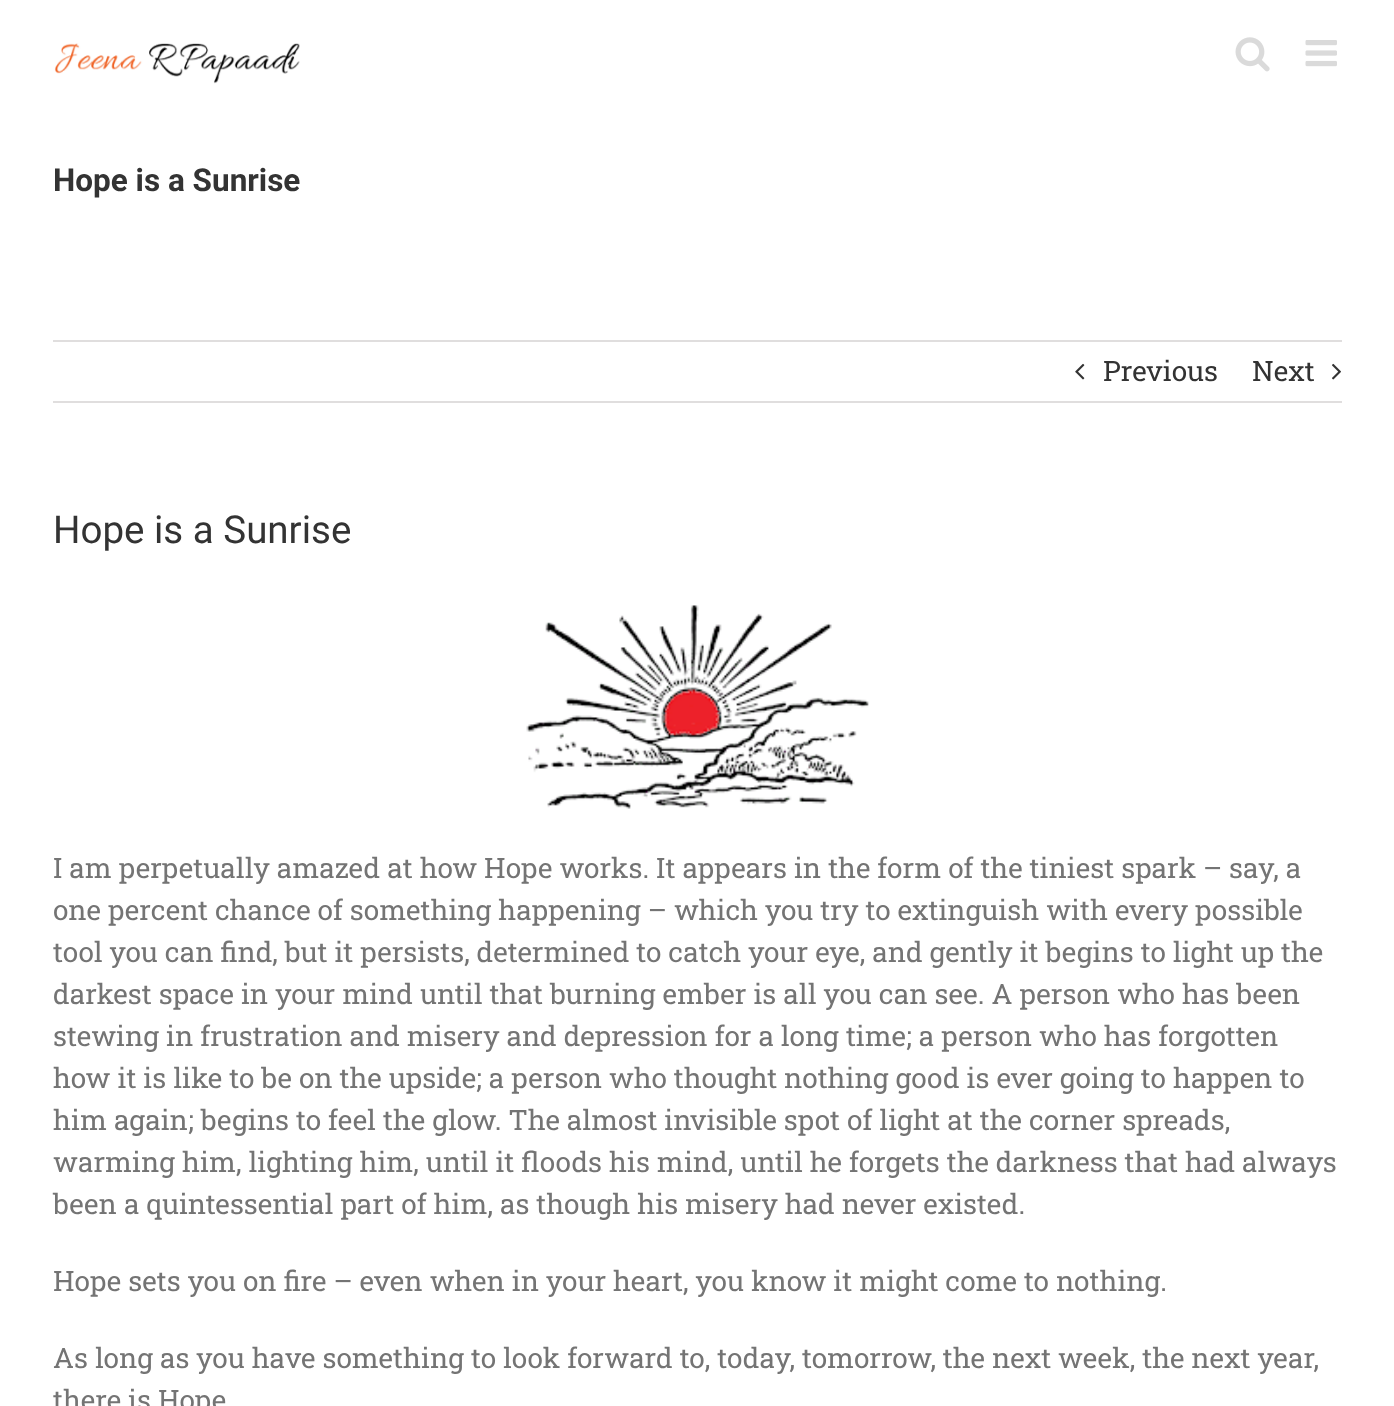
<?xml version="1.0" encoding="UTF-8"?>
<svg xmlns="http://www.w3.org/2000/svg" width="1394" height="1406">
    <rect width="100%" height="100%" fill="#FFFFFF"/>
    <image x="54" y="43" width="246" height="41" href="img_01.png"/>
    <image x="1235" y="37" width="35" height="35" href="img_02.png"/>
    <image x="1305" y="40" width="32" height="27" href="img_03.png"/>
    <text x="53" y="191" font-family="Roboto" font-size="31.5" font-weight="700" fill="#333333">Hope is a Sunrise</text>
    <rect x="53" y="340" width="1289" height="2" fill="#E0DEDE"/>
    <rect x="53" y="401" width="1289" height="2" fill="#E0DEDE"/>
    <image x="1075" y="363" width="10" height="17" href="img_04.png"/>
    <text x="1103" y="381" font-family="Roboto Slab" font-size="28" fill="#333333">Previous</text>
    <text x="1252" y="381" font-family="Roboto Slab" font-size="28" fill="#333333">Next</text>
    <image x="1332" y="363" width="9" height="17" href="img_05.png"/>
    <text x="53" y="543" font-family="Roboto" font-size="38.5" fill="#333333">Hope is a Sunrise</text>
    <image x="526" y="605" width="343" height="204" href="img_06.png"/>
    <text font-family="Roboto Slab" font-size="28" fill="#747474">
        <tspan x="53" y="878">I am perpetually amazed at how Hope works. It appears in the form of the tiniest spark – say, a</tspan>
        <tspan x="53" y="920">one percent chance of something happening – which you try to extinguish with every possible</tspan>
        <tspan x="53" y="962">tool you can find, but it persists, determined to catch your eye, and gently it begins to light up the</tspan>
        <tspan x="53" y="1004">darkest space in your mind until that burning ember is all you can see. A person who has been</tspan>
        <tspan x="53" y="1046">stewing in frustration and misery and depression for a long time; a person who has forgotten</tspan>
        <tspan x="53" y="1088">how it is like to be on the upside; a person who thought nothing good is ever going to happen to</tspan>
        <tspan x="53" y="1130">him again; begins to feel the glow. The almost invisible spot of light at the corner spreads,</tspan>
        <tspan x="53" y="1172">warming him, lighting him, until it floods his mind, until he forgets the darkness that had always</tspan>
        <tspan x="53" y="1214">been a quintessential part of him, as though his misery had never existed.</tspan>
    </text>
    <text x="53" y="1291" font-family="Roboto Slab" font-size="28" fill="#747474">Hope sets you on fire – even when in your heart, you know it might come to nothing.</text>
    <text font-family="Roboto Slab" font-size="28" fill="#747474">
        <tspan x="53" y="1368">As long as you have something to look forward to, today, tomorrow, the next week, the next year,</tspan>
        <tspan x="53" y="1410">there is Hope</tspan>
    </text>
</svg>
